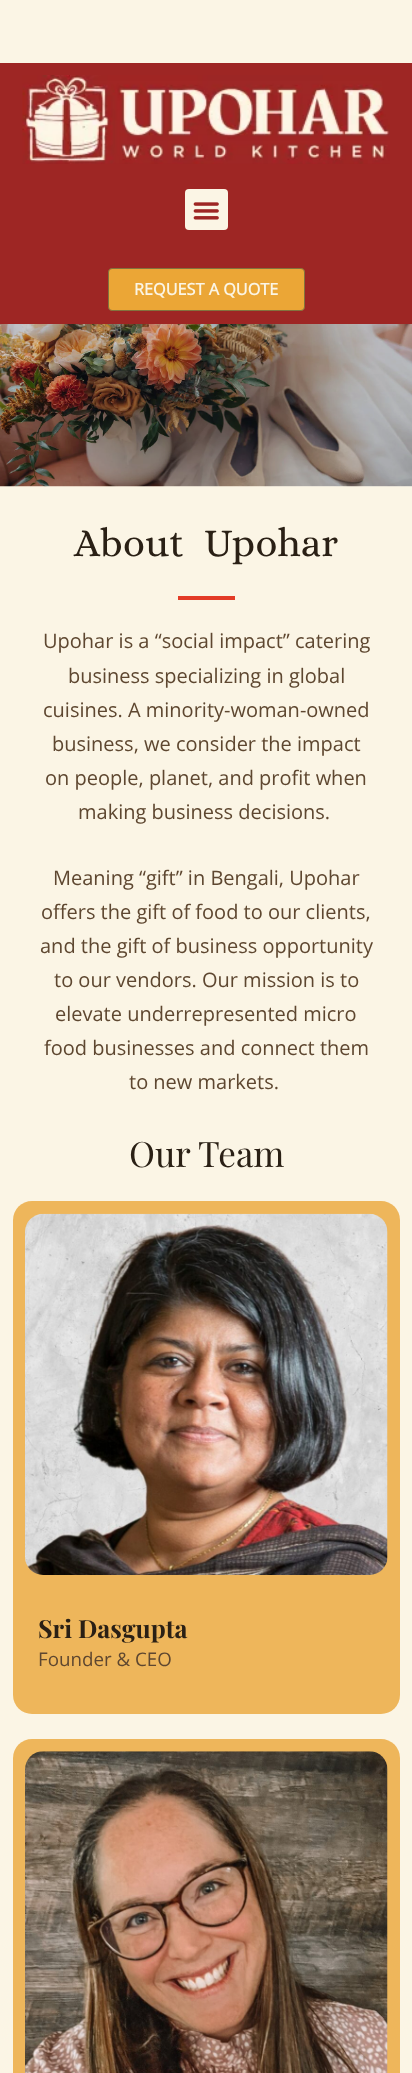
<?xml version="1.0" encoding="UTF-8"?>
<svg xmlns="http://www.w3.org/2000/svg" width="412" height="2073">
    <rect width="100%" height="100%" fill="#FBF5E5"/>
    <rect x="0" y="63" width="412" height="261" fill="#9E2624"/>
    <image x="22" y="75" width="368" height="89" href="img_01.png"/>
    <rect x="185" y="189" width="43" height="41" rx="4" fill="#FBF5E5"/>
    <image x="193" y="202" width="26" height="18" href="img_02.png"/>
    <rect x="108.5" y="268.5" width="196" height="42" rx="3.5" fill="#EBA636" stroke="#82733D"/>
    <text x="134" y="295" font-family="Open Sans" font-size="16.25" font-weight="700" fill="#FBF5E5">REQUEST A QUOTE</text>
    <image x="0" y="324" width="412" height="163" href="img_03.png"/>
    <text x="74" y="556" word-spacing="10" font-family="Alice" font-size="40" letter-spacing="0.25" fill="#2A2015">About Upohar</text>
    <rect x="178" y="596" width="57" height="4" fill="#E33B26"/>
    <text x="43" y="648" font-family="Open Sans" font-size="20" fill="#5E4730">Upohar is a “social impact” catering</text>
    <text x="68" y="683" font-family="Open Sans" font-size="20" fill="#5E4730">business specializing in global</text>
    <text x="43" y="717" font-family="Open Sans" font-size="20" fill="#5E4730">cuisines. A minority-woman-owned</text>
    <text x="52" y="751" font-family="Open Sans" font-size="20" fill="#5E4730">business, we consider the impact</text>
    <text x="45" y="785" font-family="Open Sans" font-size="20" fill="#5E4730">on people, planet, and profit when</text>
    <text x="78" y="819" font-family="Open Sans" font-size="20" fill="#5E4730">making business decisions.</text>
    <text x="53" y="885" font-family="Open Sans" font-size="20" fill="#5E4730">Meaning “gift” in Bengali, Upohar</text>
    <text x="41" y="919" font-family="Open Sans" font-size="20" fill="#5E4730">offers the gift of food to our clients,</text>
    <text x="40" y="953" font-family="Open Sans" font-size="20" fill="#5E4730">and the gift of business opportunity</text>
    <text x="54" y="987" font-family="Open Sans" font-size="20" fill="#5E4730">to our vendors. Our mission is to</text>
    <text x="55" y="1021" font-family="Open Sans" font-size="20" fill="#5E4730">elevate underrepresented micro</text>
    <text x="44" y="1055" font-family="Open Sans" font-size="20" fill="#5E4730">food businesses and connect them</text>
    <text x="129" y="1089" font-family="Open Sans" font-size="20" fill="#5E4730">to new markets.</text>
    <text x="129" y="1167" font-family="Playfair Display" font-size="35" fill="#2A2015">Our Team</text>
    <rect x="13" y="1201" width="387" height="513" rx="19" fill="#EEB65B"/>
    <image x="25" y="1213" width="363" height="362" href="img_04.png"/>
    <text x="38" y="1638" font-family="Playfair Display" font-size="25" font-weight="700" fill="#2A2015">Sri Dasgupta</text>
    <text x="38" y="1666" font-family="Open Sans" font-size="18.75" fill="#5E4730">Founder &amp; CEO</text>
    <rect x="13" y="1739" width="387" height="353" rx="19" fill="#EEB65B"/>
    <image x="25" y="1751" width="363" height="322" href="img_05.png"/>
</svg>
